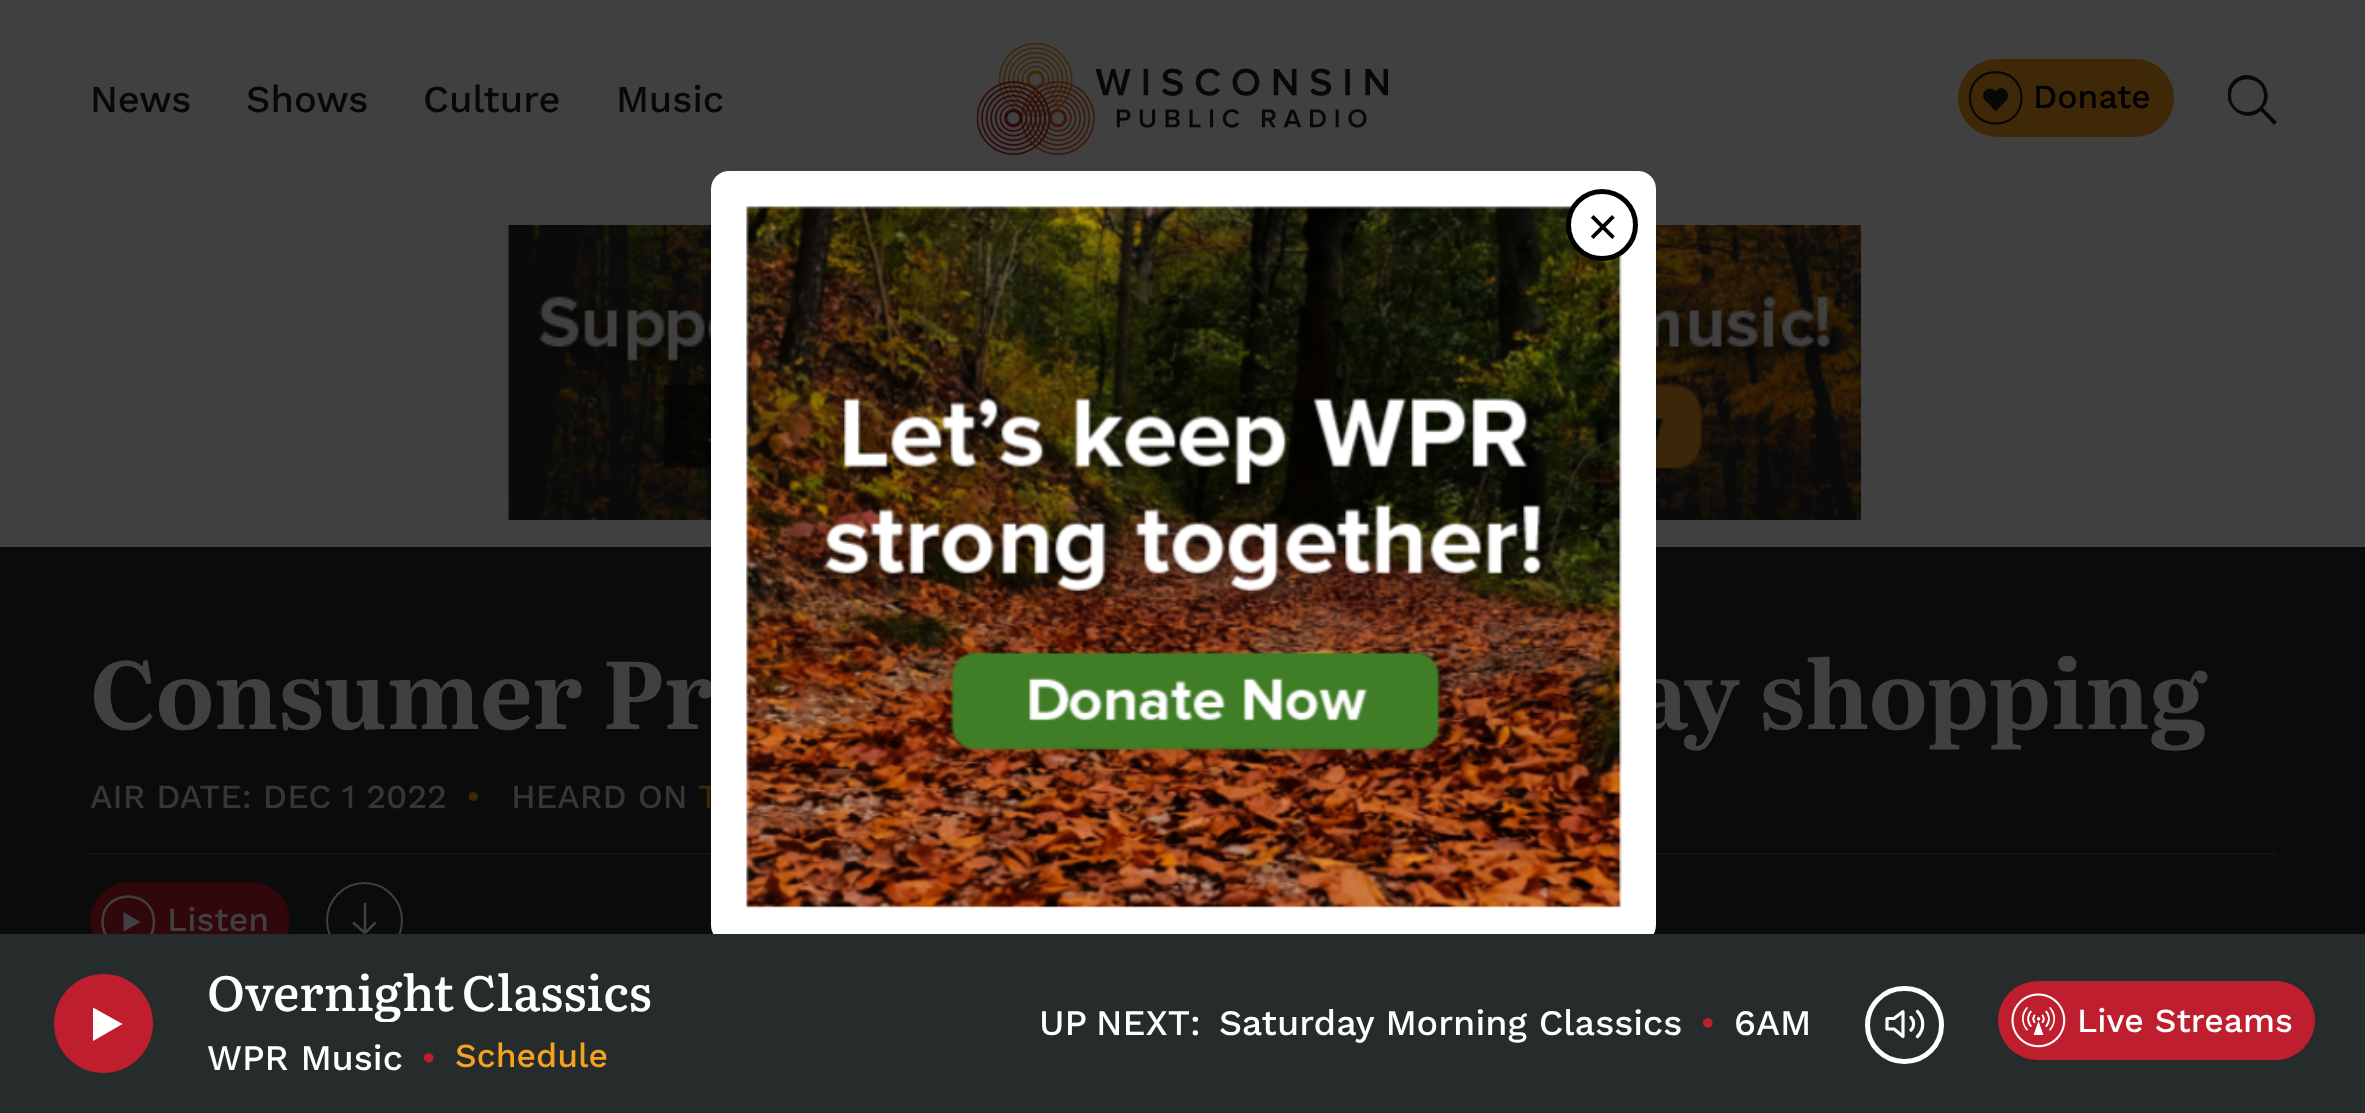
<?xml version="1.0" encoding="UTF-8"?>
<svg xmlns="http://www.w3.org/2000/svg" width="2365" height="1113">
    <defs>
        <clipPath id="clip1"><rect x="2228" y="74" width="49" height="52"/></clipPath>
        <clipPath id="clip2"><rect x="101" y="893" width="54" height="57"/></clipPath>
        <clipPath id="clip3"><rect x="207" y="959" width="779" height="63"/></clipPath>
    </defs>
    <rect width="100%" height="100%" fill="#404040"/>
    <text x="90" y="112" font-family="Work Sans" font-size="38" font-weight="500" fill="#090808">News</text>
    <text x="246" y="112" font-family="Work Sans" font-size="38" font-weight="500" fill="#090808">Shows</text>
    <text x="423" y="112" font-family="Work Sans" font-size="38" font-weight="500" fill="#090808">Culture</text>
    <text x="616" y="112" font-family="Work Sans" font-size="38" font-weight="500" fill="#090808">Music</text>
    <image x="977" y="43" width="411" height="112" href="img_01.png"/>
    <rect x="1958" y="59" width="216" height="78" rx="39" fill="#3E2808"/>
    <path d="M 1970 98 C 1970 63.5 2021.5 63.5 2021.5 98 C 2021.5 132 1970 132 1970 98 Z" fill="none" stroke="#090808" stroke-width="2.1"/>
    <path d="M 2006 100.5 L 1995.5 111.5 L 1989 104 C 1987 102.5 1985 101 1984 99 C 1980 91.5 1990.5 84.5 1995.5 91.5 C 2001.5 83 2013 93.5 2006 100.5" fill="#090808"/>
    <text x="2033" y="108" font-family="Work Sans" font-size="33.75" font-weight="500" fill="#000000">Donate</text>
    <g clip-path="url(#clip1)">
        <path d="M 2277 122 L 2263 108 C 2279 89 2251 63 2233 81 C 2216 99 2241 127 2261 111 L 2274 125 Z M 2231 96 C 2231 74 2263 74 2264 95 C 2265 117 2231 118 2231 96 Z" fill="#090808"/>
    </g>
    <image x="508" y="225" width="1353" height="295" href="img_02.png"/>
    <rect x="0" y="547" width="2365" height="387" fill="#0A0B0B"/>
    <text x="90" y="729" font-family="Literata" font-size="94.5" font-weight="700" fill="#404040">Consumer Pr</text>
    <text x="1634" y="729" font-family="Literata" font-size="94.5" font-weight="700" fill="#404040">ay shopping</text>
    <text x="698" y="808" font-family="Work Sans" font-size="33.75" font-weight="500" fill="#3E2808">T</text>
    <rect x="90" y="853" width="2187" height="2" fill="#131313"/>
    <rect x="711" y="171" width="945" height="772" rx="18" fill="#FFFFFF"/>
    <image x="746" y="206" width="876" height="703" href="img_03.png"/>
    <circle cx="1602" cy="225" r="33.5" fill="#FFFFFF" stroke="#000000" stroke-width="5"/>
    <text x="1587" y="245" font-family="Liberation Sans" font-size="54" fill="#000000">×</text>
    <rect x="90" y="882" width="200" height="77" rx="38.5" fill="#30080B"/>
    <g clip-path="url(#clip2)">
        <path d="M 102.5 922 C 102.5 888 154 888 154 922 C 154 955.5 102.5 955.5 102.5 922 Z" fill="none" stroke="#404040" stroke-width="2.5"/>
    </g>
    <circle cx="364.5" cy="920.5" r="37.5" fill="none" stroke="#404040" stroke-width="2"/>
    <rect x="0" y="934" width="2365" height="179" fill="#262C2C"/>
    <circle cx="103.5" cy="1023.5" r="49.5" fill="#BE1E2D"/>
    <path d="M 93 1007.5 V 1041 L 122.5 1024 Z" fill="#FFFFFF"/>
    <g clip-path="url(#clip3)">
        <text x="207" y="1011" word-spacing="-2" font-family="Literata" font-size="49.5" font-weight="500" fill="#FFFFFF">Overnight Classics</text>
    </g>
    <text x="207" y="1070" font-family="Work Sans" font-size="36" font-weight="500" fill="#FFFFFF">WPR Music</text>
    <text x="421" y="1070" font-family="Work Sans" font-size="36" font-weight="500" fill="#BE1E2D">•</text>
    <text x="455" y="1067" font-family="Work Sans" font-size="33.75" font-weight="500" fill="#F6A120">Schedule</text>
    <text x="1039" y="1035" word-spacing="-2" font-family="Work Sans" font-size="36" font-weight="500" fill="#FFFFFF">UP NEXT</text>
    <text x="1190" y="1035" font-family="Work Sans" font-size="36" font-weight="500" fill="#FFFFFF">:</text>
    <text x="1219" y="1035" font-family="Work Sans" font-size="36" font-weight="500" fill="#FFFFFF">Saturday Morning Classics</text>
    <text x="1700" y="1035" font-family="Work Sans" font-size="36" font-weight="500" fill="#BE1E2D">•</text>
    <text x="1734" y="1035" font-family="Work Sans" font-size="36" font-weight="500" fill="#FFFFFF">6AM</text>
    <rect x="1867.5" y="988.5" width="74" height="73" rx="36.5" fill="none" stroke="#FFFFFF" stroke-width="5"/>
    <path d="M 1903 1011.5 L 1894 1018.5 H 1887 V 1029 H 1894 L 1903 1036.5 Z M 1917.5 1011.5 C 1924.5 1018.5 1924.5 1029.5 1917.5 1036.5 M 1911 1017.5 C 1914.5 1021 1914.5 1026.5 1911 1030" fill="none" stroke="#FFFFFF" stroke-width="3.2" stroke-linecap="round" stroke-linejoin="round"/>
    <rect x="1998" y="981" width="317" height="79" rx="39.5" fill="#BE1E2D"/>
    <image x="2011" y="993" width="55" height="55" href="img_04.png"/>
    <text x="2077" y="1032" font-family="Work Sans" font-size="33.75" font-weight="500" fill="#FFFFFF">Live Streams</text>
    <text x="90" y="808" font-family="Work Sans" font-size="33.75" font-weight="500" fill="#363636">AIR DATE: DEC 1 2022</text>
    <text x="466" y="808" font-family="Work Sans" font-size="33.75" font-weight="500" fill="#3E2808">•</text>
    <text x="511" y="808" font-family="Work Sans" font-size="33.75" font-weight="500" fill="#363636">HEARD ON</text>
    <path d="M 123.5 912 V 931.5 L 140.5 922 Z" fill="#404040"/>
    <text x="167" y="931" font-family="Work Sans" font-size="33.75" font-weight="500" fill="#404040">Listen</text>
    <path d="M 365 933 L 353 922.5 M 365 933 V 903 M 365 933 L 375.5 922.5" fill="none" stroke="#404040" stroke-width="2.6"/>
</svg>
